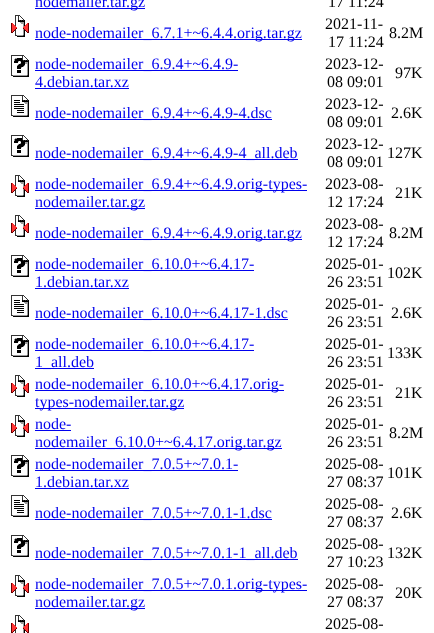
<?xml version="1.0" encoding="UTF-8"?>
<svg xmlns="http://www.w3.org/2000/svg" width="434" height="633">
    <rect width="100%" height="100%" fill="#FFFFFF"/>
    <rect x="35" y="8" width="110" height="1" fill="#0000EE"/>
    <text x="35" y="7" font-family="Liberation Serif" font-size="16" fill="#0000EE">nodemailer.tar.gz</text>
    <text x="328" y="7" font-family="Liberation Serif" font-size="16" fill="#000000">17 11:24</text>
    <image x="11" y="15" width="18" height="22" href="img_01.png"/>
    <rect x="35" y="39" width="267" height="1" fill="#0000EE"/>
    <text x="35" y="38" font-family="Liberation Serif" font-size="16" fill="#0000EE">node-nodemailer_6.7.1+~6.4.4.orig.tar.gz</text>
    <text x="325" y="29" font-family="Liberation Serif" font-size="16" fill="#000000">2021-11-</text>
    <text x="328" y="47" font-family="Liberation Serif" font-size="16" fill="#000000">17 11:24</text>
    <text x="389" y="38" font-family="Liberation Serif" font-size="16" fill="#000000">8.2M</text>
    <image x="11" y="55" width="18" height="22" href="img_02.png"/>
    <rect x="35" y="70" width="203" height="1" fill="#0000EE"/>
    <text font-family="Liberation Serif" font-size="16" fill="#0000EE">
        <tspan x="35" y="69">node-nodemailer_6.9.4+~6.4.9-</tspan>
        <tspan x="35" y="87">4.debian.tar.xz</tspan>
    </text>
    <rect x="35" y="88" width="94" height="1" fill="#0000EE"/>
    <text x="325" y="69" font-family="Liberation Serif" font-size="16" fill="#000000">2023-12-</text>
    <text x="327" y="87" font-family="Liberation Serif" font-size="16" fill="#000000">08 09:01</text>
    <text x="395" y="78" font-family="Liberation Serif" font-size="16" fill="#000000">97K</text>
    <image x="11" y="95" width="18" height="22" href="img_03.png"/>
    <rect x="35" y="119" width="237" height="1" fill="#0000EE"/>
    <text x="35" y="118" font-family="Liberation Serif" font-size="16" fill="#0000EE">node-nodemailer_6.9.4+~6.4.9-4.dsc</text>
    <text x="325" y="109" font-family="Liberation Serif" font-size="16" fill="#000000">2023-12-</text>
    <text x="327" y="127" font-family="Liberation Serif" font-size="16" fill="#000000">08 09:01</text>
    <text x="391" y="118" font-family="Liberation Serif" font-size="16" fill="#000000">2.6K</text>
    <image x="11" y="135" width="18" height="22" href="img_02.png"/>
    <rect x="35" y="159" width="263" height="1" fill="#0000EE"/>
    <text x="35" y="158" font-family="Liberation Serif" font-size="16" fill="#0000EE">node-nodemailer_6.9.4+~6.4.9-4_all.deb</text>
    <text x="325" y="149" font-family="Liberation Serif" font-size="16" fill="#000000">2023-12-</text>
    <text x="327" y="167" font-family="Liberation Serif" font-size="16" fill="#000000">08 09:01</text>
    <text x="387" y="158" font-family="Liberation Serif" font-size="16" fill="#000000">127K</text>
    <image x="11" y="175" width="18" height="22" href="img_01.png"/>
    <rect x="35" y="190" width="272" height="1" fill="#0000EE"/>
    <text x="35" y="189" font-family="Liberation Serif" font-size="16" fill="#0000EE">node-nodemailer_6.9.4+~6.4.9.orig-types-</text>
    <rect x="35" y="208" width="110" height="1" fill="#0000EE"/>
    <text x="35" y="207" font-family="Liberation Serif" font-size="16" fill="#0000EE">nodemailer.tar.gz</text>
    <text x="325" y="189" font-family="Liberation Serif" font-size="16" fill="#000000">2023-08-</text>
    <text x="327" y="207" font-family="Liberation Serif" font-size="16" fill="#000000">12 17:24</text>
    <text x="395" y="198" font-family="Liberation Serif" font-size="16" fill="#000000">21K</text>
    <image x="11" y="215" width="18" height="22" href="img_01.png"/>
    <rect x="35" y="239" width="267" height="1" fill="#0000EE"/>
    <text x="35" y="238" font-family="Liberation Serif" font-size="16" fill="#0000EE">node-nodemailer_6.9.4+~6.4.9.orig.tar.gz</text>
    <text x="325" y="229" font-family="Liberation Serif" font-size="16" fill="#000000">2023-08-</text>
    <text x="327" y="247" font-family="Liberation Serif" font-size="16" fill="#000000">12 17:24</text>
    <text x="389" y="238" font-family="Liberation Serif" font-size="16" fill="#000000">8.2M</text>
    <image x="11" y="255" width="18" height="22" href="img_02.png"/>
    <rect x="35" y="270" width="219" height="1" fill="#0000EE"/>
    <text font-family="Liberation Serif" font-size="16" fill="#0000EE">
        <tspan x="35" y="269">node-nodemailer_6.10.0+~6.4.17-</tspan>
        <tspan x="35" y="287">1.debian.tar.xz</tspan>
    </text>
    <rect x="35" y="288" width="94" height="1" fill="#0000EE"/>
    <text x="325" y="269" font-family="Liberation Serif" font-size="16" fill="#000000">2025-01-</text>
    <text x="327" y="287" font-family="Liberation Serif" font-size="16" fill="#000000">26 23:51</text>
    <text x="387" y="278" font-family="Liberation Serif" font-size="16" fill="#000000">102K</text>
    <image x="11" y="295" width="18" height="22" href="img_03.png"/>
    <rect x="35" y="319" width="253" height="1" fill="#0000EE"/>
    <text x="35" y="318" font-family="Liberation Serif" font-size="16" fill="#0000EE">node-nodemailer_6.10.0+~6.4.17-1.dsc</text>
    <text x="325" y="309" font-family="Liberation Serif" font-size="16" fill="#000000">2025-01-</text>
    <text x="327" y="327" font-family="Liberation Serif" font-size="16" fill="#000000">26 23:51</text>
    <text x="391" y="318" font-family="Liberation Serif" font-size="16" fill="#000000">2.6K</text>
    <image x="11" y="335" width="18" height="22" href="img_02.png"/>
    <rect x="35" y="350" width="219" height="1" fill="#0000EE"/>
    <text x="35" y="349" font-family="Liberation Serif" font-size="16" fill="#0000EE">node-nodemailer_6.10.0+~6.4.17-</text>
    <rect x="35" y="368" width="59" height="1" fill="#0000EE"/>
    <text x="35" y="367" font-family="Liberation Serif" font-size="16" fill="#0000EE">1_all.deb</text>
    <text x="325" y="349" font-family="Liberation Serif" font-size="16" fill="#000000">2025-01-</text>
    <text x="327" y="367" font-family="Liberation Serif" font-size="16" fill="#000000">26 23:51</text>
    <text x="387" y="358" font-family="Liberation Serif" font-size="16" fill="#000000">133K</text>
    <image x="11" y="375" width="18" height="22" href="img_01.png"/>
    <rect x="35" y="390" width="249" height="1" fill="#0000EE"/>
    <text x="35" y="389" font-family="Liberation Serif" font-size="16" fill="#0000EE">node-nodemailer_6.10.0+~6.4.17.orig-</text>
    <rect x="35" y="408" width="149" height="1" fill="#0000EE"/>
    <text x="35" y="407" font-family="Liberation Serif" font-size="16" fill="#0000EE">types-nodemailer.tar.gz</text>
    <text x="325" y="389" font-family="Liberation Serif" font-size="16" fill="#000000">2025-01-</text>
    <text x="327" y="407" font-family="Liberation Serif" font-size="16" fill="#000000">26 23:51</text>
    <text x="395" y="398" font-family="Liberation Serif" font-size="16" fill="#000000">21K</text>
    <image x="11" y="415" width="18" height="22" href="img_01.png"/>
    <text x="35" y="429" font-family="Liberation Serif" font-size="16" fill="#0000EE">node-</text>
    <rect x="35" y="430" width="36" height="1" fill="#0000EE"/>
    <rect x="35" y="448" width="247" height="1" fill="#0000EE"/>
    <text x="35" y="447" font-family="Liberation Serif" font-size="16" fill="#0000EE">nodemailer_6.10.0+~6.4.17.orig.tar.gz</text>
    <text x="325" y="429" font-family="Liberation Serif" font-size="16" fill="#000000">2025-01-</text>
    <text x="327" y="447" font-family="Liberation Serif" font-size="16" fill="#000000">26 23:51</text>
    <text x="389" y="438" font-family="Liberation Serif" font-size="16" fill="#000000">8.2M</text>
    <image x="11" y="455" width="18" height="22" href="img_02.png"/>
    <rect x="35" y="470" width="203" height="1" fill="#0000EE"/>
    <text font-family="Liberation Serif" font-size="16" fill="#0000EE">
        <tspan x="35" y="469">node-nodemailer_7.0.5+~7.0.1-</tspan>
        <tspan x="35" y="487">1.debian.tar.xz</tspan>
    </text>
    <rect x="35" y="488" width="94" height="1" fill="#0000EE"/>
    <text x="325" y="469" font-family="Liberation Serif" font-size="16" fill="#000000">2025-08-</text>
    <text x="327" y="487" font-family="Liberation Serif" font-size="16" fill="#000000">27 08:37</text>
    <text x="387" y="478" font-family="Liberation Serif" font-size="16" fill="#000000">101K</text>
    <image x="11" y="495" width="18" height="22" href="img_03.png"/>
    <rect x="35" y="519" width="237" height="1" fill="#0000EE"/>
    <text x="35" y="518" font-family="Liberation Serif" font-size="16" fill="#0000EE">node-nodemailer_7.0.5+~7.0.1-1.dsc</text>
    <text x="325" y="509" font-family="Liberation Serif" font-size="16" fill="#000000">2025-08-</text>
    <text x="327" y="527" font-family="Liberation Serif" font-size="16" fill="#000000">27 08:37</text>
    <text x="391" y="518" font-family="Liberation Serif" font-size="16" fill="#000000">2.6K</text>
    <image x="11" y="535" width="18" height="22" href="img_02.png"/>
    <rect x="35" y="559" width="263" height="1" fill="#0000EE"/>
    <text x="35" y="558" font-family="Liberation Serif" font-size="16" fill="#0000EE">node-nodemailer_7.0.5+~7.0.1-1_all.deb</text>
    <text x="325" y="549" font-family="Liberation Serif" font-size="16" fill="#000000">2025-08-</text>
    <text x="327" y="567" font-family="Liberation Serif" font-size="16" fill="#000000">27 10:23</text>
    <text x="387" y="558" font-family="Liberation Serif" font-size="16" fill="#000000">132K</text>
    <image x="11" y="575" width="18" height="22" href="img_01.png"/>
    <rect x="35" y="590" width="272" height="1" fill="#0000EE"/>
    <text x="35" y="589" font-family="Liberation Serif" font-size="16" fill="#0000EE">node-nodemailer_7.0.5+~7.0.1.orig-types-</text>
    <rect x="35" y="608" width="110" height="1" fill="#0000EE"/>
    <text x="35" y="607" font-family="Liberation Serif" font-size="16" fill="#0000EE">nodemailer.tar.gz</text>
    <text x="325" y="589" font-family="Liberation Serif" font-size="16" fill="#000000">2025-08-</text>
    <text x="327" y="607" font-family="Liberation Serif" font-size="16" fill="#000000">27 08:37</text>
    <text x="395" y="598" font-family="Liberation Serif" font-size="16" fill="#000000">20K</text>
    <image x="11" y="615" width="18" height="18" href="img_04.png"/>
    <text x="325" y="629" font-family="Liberation Serif" font-size="16" fill="#000000">2025-08-</text>
</svg>
